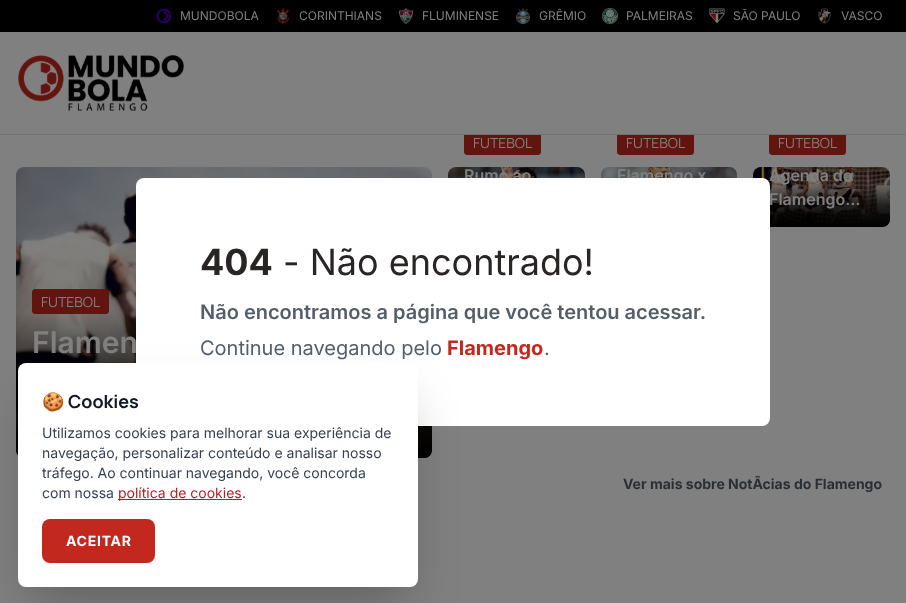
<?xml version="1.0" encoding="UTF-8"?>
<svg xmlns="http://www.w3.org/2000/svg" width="906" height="603">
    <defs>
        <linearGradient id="g1" gradientUnits="userSpaceOnUse" x1="822" y1="182" x2="822" y2="227"><stop offset="0" stop-color="#000000" stop-opacity="0"/><stop offset="0.5" stop-color="#000000" stop-opacity="0.7"/><stop offset="1" stop-color="#000000"/></linearGradient>
        <linearGradient id="g2" gradientUnits="userSpaceOnUse" x1="224" y1="312" x2="224" y2="458"><stop offset="0" stop-color="#000000" stop-opacity="0"/><stop offset="0.5" stop-color="#000000" stop-opacity="0.7"/><stop offset="1" stop-color="#000000"/></linearGradient>
        <filter id="blur1" x="-50%" y="-200%" width="200%" height="500%"><feGaussianBlur stdDeviation="25"/></filter>
    </defs>
    <rect width="100%" height="100%" fill="#808080"/>
    <rect x="0" y="0" width="906" height="32" fill="#000000"/>
    <image x="156" y="8" width="16" height="16" href="img_01.png"/>
    <text x="180" y="20" font-family="Inter" font-size="12" fill="#808080">MUNDOBOLA</text>
    <image x="277" y="8" width="12" height="16" href="img_02.png"/>
    <text x="299" y="20" font-family="Inter" font-size="12" fill="#808080">CORINTHIANS</text>
    <image x="399" y="8" width="14" height="16" href="img_03.png"/>
    <text x="422" y="20" font-family="Inter" font-size="12" fill="#808080">FLUMINENSE</text>
    <image x="516" y="8" width="14" height="16" href="img_04.png"/>
    <text x="539" y="20" font-family="Inter" font-size="12" fill="#808080">GRÊMIO</text>
    <image x="602" y="8" width="16" height="16" href="img_05.png"/>
    <text x="626" y="20" font-family="Inter" font-size="12" fill="#808080">PALMEIRAS</text>
    <image x="709" y="8" width="16" height="16" href="img_06.png"/>
    <text x="733" y="20" font-family="Inter" font-size="12" fill="#808080">SÃO PAULO</text>
    <image x="818" y="8" width="13" height="16" href="img_07.png"/>
    <text x="841" y="20" font-family="Inter" font-size="12" fill="#808080">VASCO</text>
    <rect x="464.5" y="130.5" width="76" height="24" rx="2.5" fill="#62140F" stroke="#62140F"/>
    <rect x="617.5" y="130.5" width="76" height="24" rx="2.5" fill="#62140F" stroke="#62140F"/>
    <rect x="769.5" y="130.5" width="76" height="24" rx="2.5" fill="#62140F" stroke="#62140F"/>
    <rect x="464" y="130" width="382" height="4" fill="#808080"/>
    <rect x="0" y="134" width="906" height="1" fill="#707070"/>
    <image x="18" y="55" width="166" height="56" href="img_08.png"/>
    <text x="473" y="148" font-family="Manrope" font-size="14" fill="#808080">FUTEBOL</text>
    <image x="448" y="167" width="137" height="11" href="img_09.png"/>
    <text x="464" y="181" font-family="Inter" font-size="16" font-weight="600" fill="#808080">Rumo ao</text>
    <text x="626" y="148" font-family="Manrope" font-size="14" fill="#808080">FUTEBOL</text>
    <image x="601" y="167" width="136" height="11" href="img_10.png"/>
    <text x="617" y="181" font-family="Inter" font-size="16" font-weight="600" fill="#808080">Flamengo x</text>
    <text x="778" y="148" font-family="Manrope" font-size="14" fill="#808080">FUTEBOL</text>
    <image x="753" y="167" width="137" height="60" href="img_11.png"/>
    <path d="M 753 182 H 890 V 219 C 890 223.5 886.5 227 882 227 H 761 C 756.5 227 753 223.5 753 219 Z" fill="url(#g1)"/>
    <text font-family="Inter" font-size="16" font-weight="600" fill="#808080">
        <tspan x="769" y="181">Agenda do</tspan>
        <tspan x="769" y="205">Flamengo…</tspan>
    </text>
    <image x="16" y="167" width="416" height="291" href="img_12.png"/>
    <path d="M 16 312 H 432 V 450 C 432 454.5 428.5 458 424 458 H 24 C 19.5 458 16 454.5 16 450 Z" fill="url(#g2)"/>
    <rect x="32.5" y="289.5" width="76" height="24" rx="2.5" fill="#62140F" stroke="#62140F"/>
    <text x="41" y="307" font-family="Manrope" font-size="14" fill="#808080">FUTEBOL</text>
    <text x="32" y="353" font-family="Inter" font-size="30" font-weight="600" fill="#808080">Flamen</text>
    <text x="623" y="489" font-family="Inter" font-size="14" font-weight="700" fill="#2A2F35">Ver mais sobre NotÃcias do Flamengo</text>
    <rect x="136" y="178" width="634" height="248" rx="8" fill="#FFFFFF"/>
    <text x="200" y="275" font-family="Inter" font-size="36" font-weight="700" fill="#292524">404</text>
    <text x="283" y="275" font-family="Inter" font-size="36" fill="#292524">- Não encontrado!</text>
    <text x="200" y="319" font-family="Inter" font-size="20" font-weight="600" fill="#545E69">Não encontramos a página que você tentou acessar.</text>
    <text x="200" y="355" font-family="Inter" font-size="20" fill="#545E69">Continue navegando pelo</text>
    <text x="447" y="355" font-family="Inter" font-size="20" font-weight="700" fill="#C3281E">Flamengo</text>
    <text x="544" y="355" font-family="Inter" font-size="20" fill="#545E69">.</text>
    <rect x="30" y="400" width="376" height="200" fill="#000000" fill-opacity="0.25" filter="url(#blur1)"/>
    <rect x="18" y="363" width="400" height="224" rx="8" fill="#FFFFFF"/>
    <text x="42" y="408" font-family="Noto Color Emoji" font-size="18" font-weight="700" fill="#111827">🍪</text>
    <text x="68" y="408" font-family="Manrope" font-size="18" font-weight="700" fill="#111827">Cookies</text>
    <text font-family="Inter" font-size="14" fill="#374151">
        <tspan x="42" y="438">Utilizamos cookies para melhorar sua experiência de</tspan>
        <tspan x="42" y="458">navegação, personalizar conteúdo e analisar nosso</tspan>
        <tspan x="42" y="478">tráfego. Ao continuar navegando, você concorda</tspan>
        <tspan x="42" y="498">com nossa</tspan>
    </text>
    <rect x="118" y="499" width="124" height="1" fill="#BA1F1E"/>
    <text x="118" y="498" font-family="Inter" font-size="14" fill="#BA1F1E">política de cookies</text>
    <text x="242" y="498" font-family="Inter" font-size="14" fill="#374151">.</text>
    <rect x="42" y="519" width="113" height="44" rx="8" fill="#C3281E"/>
    <text x="66" y="546" font-family="Inter" font-size="14" font-weight="700" letter-spacing="0.75" fill="#FFFFFF">ACEITAR</text>
</svg>
